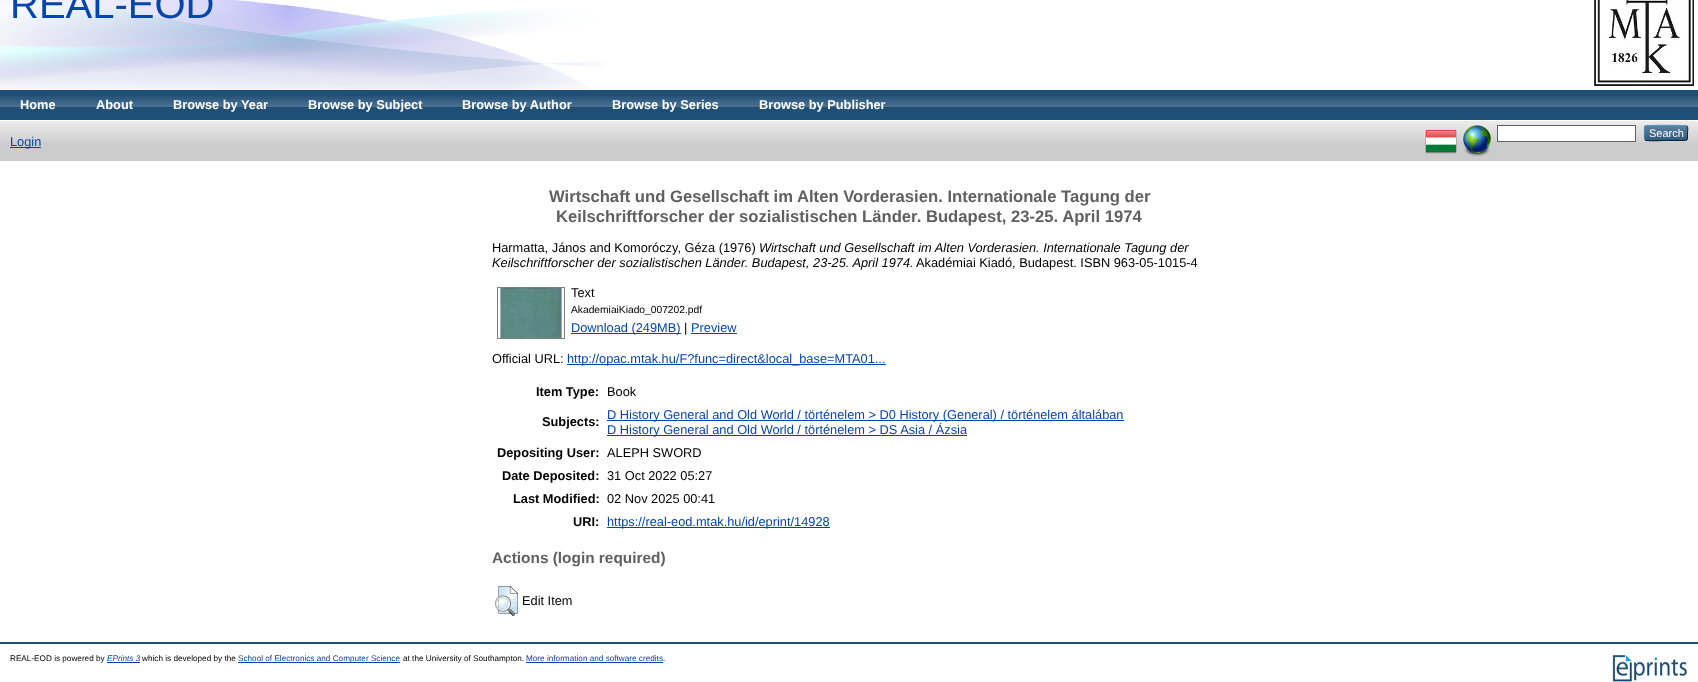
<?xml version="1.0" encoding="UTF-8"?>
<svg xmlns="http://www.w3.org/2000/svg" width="1698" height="682">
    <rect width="100%" height="100%" fill="#FFFFFF"/>
    <image x="0" y="0" width="605" height="90" href="img_01.png"/>
    <text x="10" y="18" font-family="Liberation Sans" font-size="40" fill="#0645AD">REAL-EOD</text>
    <image x="1594" y="0" width="100" height="86" href="img_02.png"/>
    <rect x="0" y="90" width="1698" height="30" fill="#204F76"/>
    <image x="0" y="96" width="1698" height="11" href="img_03.png"/>
    <text x="20" y="109" font-family="Liberation Sans" font-size="12.8" font-weight="700" fill="#FFFFFF">Home</text>
    <text x="96" y="109" font-family="Liberation Sans" font-size="12.8" font-weight="700" fill="#FFFFFF">About</text>
    <text x="173" y="109" font-family="Liberation Sans" font-size="12.8" font-weight="700" fill="#FFFFFF">Browse by Year</text>
    <text x="308" y="109" font-family="Liberation Sans" font-size="12.8" font-weight="700" fill="#FFFFFF">Browse by Subject</text>
    <text x="462" y="109" font-family="Liberation Sans" font-size="12.8" font-weight="700" fill="#FFFFFF">Browse by Author</text>
    <text x="612" y="109" font-family="Liberation Sans" font-size="12.8" font-weight="700" fill="#FFFFFF">Browse by Series</text>
    <text x="759" y="109" font-family="Liberation Sans" font-size="12.8" font-weight="700" fill="#FFFFFF">Browse by Publisher</text>
    <rect x="0" y="121" width="1698" height="40" fill="#CCCCCC"/>
    <image x="0" y="121" width="1698" height="22" href="img_04.png"/>
    <image x="1425" y="129" width="32" height="25" href="img_05.png"/>
    <image x="1463" y="125" width="28" height="32" href="img_06.png"/>
    <rect x="1497.5" y="125.5" width="138" height="16" fill="#FFFFFF" stroke="#606060"/>
    <rect x="1644" y="125" width="44" height="16" rx="3" fill="#1F4F76"/>
    <image x="1644" y="125" width="44" height="16" href="img_07.png"/>
    <path d="M 1645 126 C 1646.5 125 1685.5 125 1687 126" fill="none" stroke="#5B97C7"/>
    <path d="M 1687 126 C 1688.5 128 1687.5 131 1687.5 133 C 1687.5 141.5 1688 140.5 1678.5 140.5 H 1666 C 1663 140.5 1647 141.5 1645 140" fill="none" stroke="#0D2131"/>
    <path d="M 1645 140 C 1644 138.5 1644.5 134.5 1644.5 133 C 1644.5 131.5 1644 127.5 1645 126" fill="none" stroke="#5287B3"/>
    <text x="1649" y="137" font-family="Liberation Sans" font-size="11" fill="#FFFFFF">Search</text>
    <rect x="10" y="147" width="31" height="1" fill="#0645AD"/>
    <text x="10" y="146" font-family="Liberation Sans" font-size="12.8" fill="#0645AD">Login</text>
    <text x="549" y="202" font-family="Liberation Sans" font-size="16.65" font-weight="700" fill="#606060">Wirtschaft und Gesellschaft im Alten Vorderasien. Internationale Tagung der</text>
    <text x="556" y="222" font-family="Liberation Sans" font-size="16.65" font-weight="700" fill="#606060">Keilschriftforscher der sozialistischen Länder. Budapest, 23-25. April 1974</text>
    <text x="492" y="252" font-family="Liberation Sans" font-size="12.8" fill="#000000">Harmatta, János and Komoróczy, Géza (1976)</text>
    <text x="759" y="252" font-family="Liberation Sans" font-size="12.8" font-style="italic" fill="#000000">Wirtschaft und Gesellschaft im Alten Vorderasien. Internationale Tagung der</text>
    <text x="492" y="267" font-family="Liberation Sans" font-size="12.8" font-style="italic" fill="#000000">Keilschriftforscher der sozialistischen Länder. Budapest, 23-25. April 1974.</text>
    <text x="916" y="267" font-family="Liberation Sans" font-size="12.8" fill="#000000">Akadémiai Kiadó, Budapest. ISBN 963-05-1015-4</text>
    <image x="497" y="287" width="68" height="52" href="img_08.png"/>
    <text x="571" y="297" font-family="Liberation Sans" font-size="12.8" fill="#000000">Text</text>
    <text x="571" y="313" font-family="Liberation Sans" font-size="10.25" fill="#000000">AkademiaiKiado_007202.pdf</text>
    <rect x="571" y="333" width="110" height="1" fill="#0645AD"/>
    <text x="571" y="332" font-family="Liberation Sans" font-size="12.8" fill="#0645AD">Download (249MB)</text>
    <text x="684" y="332" font-family="Liberation Sans" font-size="12.8" fill="#000000">|</text>
    <text x="691" y="332" font-family="Liberation Sans" font-size="12.8" fill="#0645AD">Preview</text>
    <rect x="691" y="333" width="46" height="1" fill="#0645AD"/>
    <text x="492" y="363" font-family="Liberation Sans" font-size="12.8" fill="#000000">Official URL:</text>
    <rect x="567" y="364" width="319" height="1" fill="#0645AD"/>
    <text x="567" y="363" font-family="Liberation Sans" font-size="12.8" fill="#0645AD">http://opac.mtak.hu/F?func=direct&amp;local_base=MTA01...</text>
    <text x="536" y="396" font-family="Liberation Sans" font-size="12.8" font-weight="700" fill="#000000">Item Type:</text>
    <text x="607" y="396" font-family="Liberation Sans" font-size="12.8" fill="#000000">Book</text>
    <text x="542" y="426" font-family="Liberation Sans" font-size="12.8" font-weight="700" fill="#000000">Subjects:</text>
    <rect x="607" y="420" width="517" height="1" fill="#0645AD"/>
    <text x="607" y="419" font-family="Liberation Sans" font-size="12.8" fill="#0645AD">D History General and Old World / történelem &gt; D0 History (General) / történelem általában</text>
    <rect x="607" y="435" width="360" height="1" fill="#0645AD"/>
    <text x="607" y="434" font-family="Liberation Sans" font-size="12.8" fill="#0645AD">D History General and Old World / történelem &gt; DS Asia / Ázsia</text>
    <text x="497" y="457" font-family="Liberation Sans" font-size="12.8" font-weight="700" fill="#000000">Depositing User:</text>
    <text x="607" y="457" font-family="Liberation Sans" font-size="12.8" fill="#000000">ALEPH SWORD</text>
    <text x="502" y="480" font-family="Liberation Sans" font-size="12.8" font-weight="700" fill="#000000">Date Deposited:</text>
    <text x="607" y="480" font-family="Liberation Sans" font-size="12.8" fill="#000000">31 Oct 2022 05:27</text>
    <text x="513" y="503" font-family="Liberation Sans" font-size="12.8" font-weight="700" fill="#000000">Last Modified:</text>
    <text x="607" y="503" font-family="Liberation Sans" font-size="12.8" fill="#000000">02 Nov 2025 00:41</text>
    <text x="573" y="526" font-family="Liberation Sans" font-size="12.8" font-weight="700" fill="#000000">URI:</text>
    <rect x="607" y="527" width="223" height="1" fill="#0645AD"/>
    <text x="607" y="526" font-family="Liberation Sans" font-size="12.8" fill="#0645AD">https://real-eod.mtak.hu/id/eprint/14928</text>
    <text x="492" y="563" font-family="Liberation Sans" font-size="15.4" font-weight="700" fill="#606060">Actions (login required)</text>
    <image x="495" y="586" width="23" height="30" href="img_09.png"/>
    <text x="522" y="605" font-family="Liberation Sans" font-size="12.8" fill="#000000">Edit Item</text>
    <rect x="0" y="642" width="1698" height="2" fill="#204F76"/>
    <text x="10" y="661" font-family="Liberation Sans" font-size="8.2" fill="#000000">REAL-EOD is powered by</text>
    <text x="107" y="661" font-family="Liberation Sans" font-size="8.2" font-style="italic" fill="#0645AD">EPrints 3</text>
    <rect x="107" y="662" width="33" height="1" fill="#0645AD"/>
    <text x="142" y="661" font-family="Liberation Sans" font-size="8.2" fill="#000000">which is developed by the</text>
    <rect x="238" y="662" width="162" height="1" fill="#0645AD"/>
    <text x="238" y="661" font-family="Liberation Sans" font-size="8.2" fill="#0645AD">School of Electronics and Computer Science</text>
    <text x="403" y="661" font-family="Liberation Sans" font-size="8.2" fill="#000000">at the University of Southampton.</text>
    <text x="526" y="661" font-family="Liberation Sans" font-size="8.2" fill="#0645AD">More information and software credits</text>
    <rect x="526" y="662" width="137" height="1" fill="#0645AD"/>
    <text x="663" y="661" font-family="Liberation Sans" font-size="8.2" fill="#000000">.</text>
    <image x="1612" y="655" width="75" height="27" href="img_10.png"/>
</svg>
